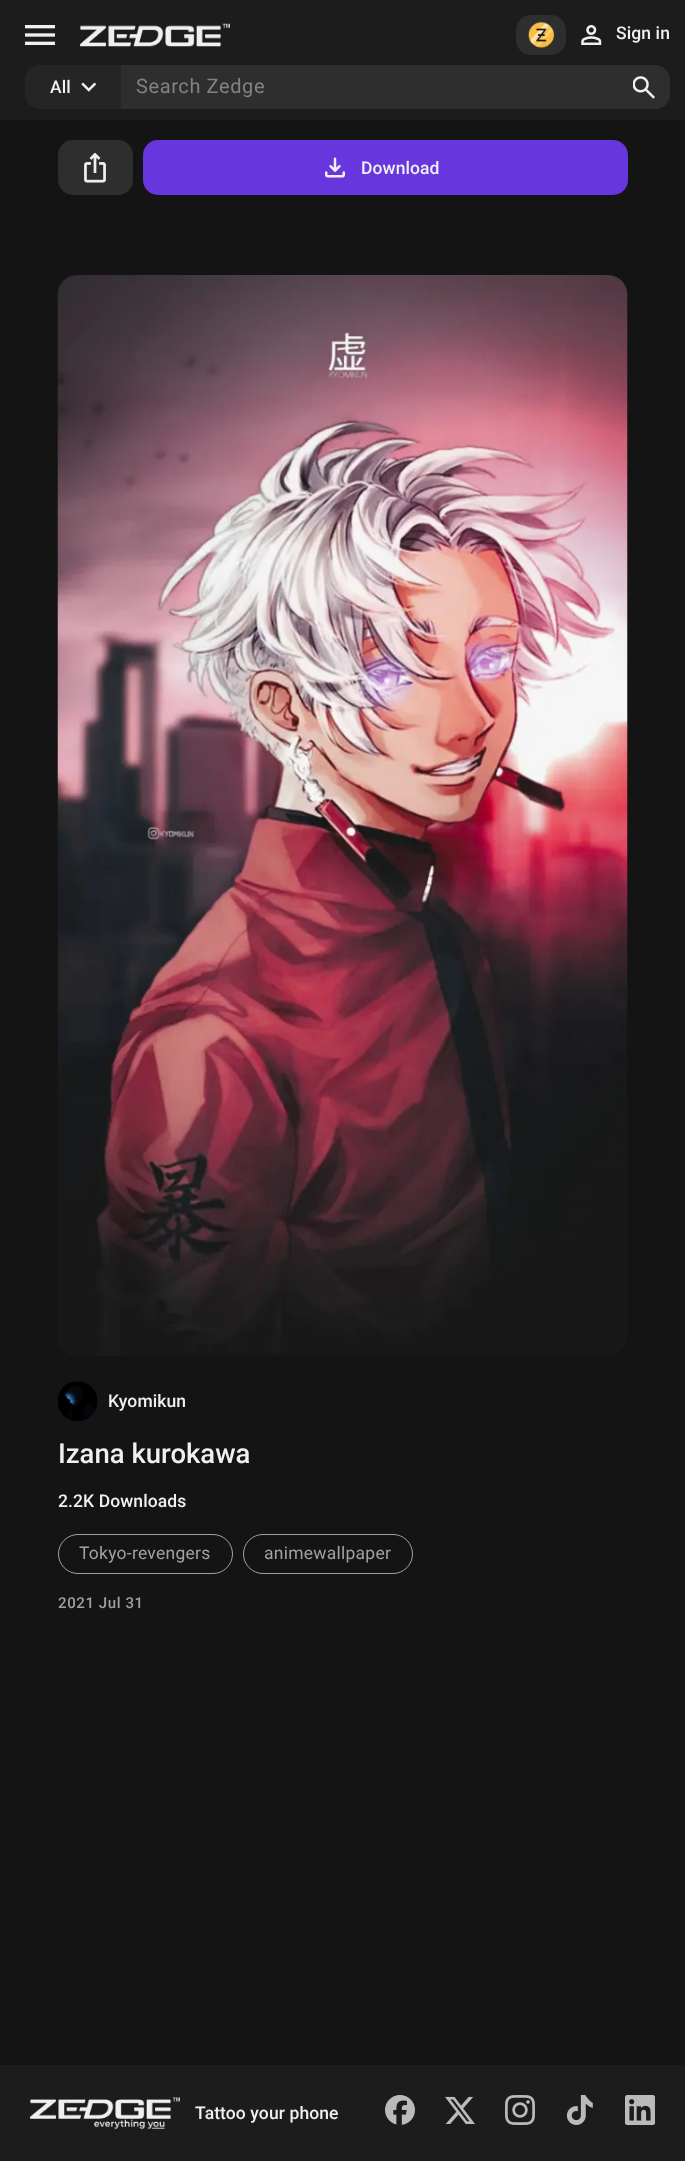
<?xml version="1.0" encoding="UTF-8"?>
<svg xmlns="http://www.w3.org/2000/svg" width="685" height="2161">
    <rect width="100%" height="100%" fill="#141414"/>
    <rect x="0" y="0" width="685" height="120" fill="#1C1C1C"/>
    <image x="25" y="25" width="30" height="20" href="img_01.png"/>
    <image x="80" y="23" width="150" height="24" href="img_02.png"/>
    <rect x="516" y="15" width="50" height="40" rx="15" fill="#2E2E2E"/>
    <image x="528" y="21" width="27" height="27" href="img_03.png"/>
    <image x="581" y="25" width="21" height="20" href="img_04.png"/>
    <text x="616" y="39" font-family="Roboto" font-size="17.5" font-weight="500" letter-spacing="0.1" fill="#F0F0F0">Sign in</text>
    <path d="M 40 65 H 121 V 109 H 40 C 31.5 109 25 102.5 25 94 V 80 C 25 71.5 31.5 65 40 65 Z" fill="#252525"/>
    <text x="50" y="93" font-family="Roboto" font-size="17.5" font-weight="500" letter-spacing="0.1" fill="#F0F0F0">All</text>
    <image x="81" y="82" width="15" height="10" href="img_05.png"/>
    <path d="M 121 65 H 655 C 663.5 65 670 71.5 670 80 V 94 C 670 102.5 663.5 109 655 109 H 121 Z" fill="#2E2E2E"/>
    <text x="136" y="93" font-family="Roboto" font-size="20" letter-spacing="0.6" fill="#828282">Search Zedge</text>
    <image x="633" y="76" width="22" height="23" href="img_06.png"/>
    <rect x="58" y="140" width="75" height="55" rx="15" fill="#2E2E2E"/>
    <image x="84" y="153" width="22" height="30" href="img_07.png"/>
    <rect x="143" y="140" width="485" height="55" rx="15" fill="#6836DD"/>
    <image x="325" y="157" width="20" height="21" href="img_08.png"/>
    <text x="361" y="174" font-family="Roboto" font-size="17.5" font-weight="500" letter-spacing="0.1" fill="#F0F0F0">Download</text>
    <image x="57" y="275" width="571" height="1081" href="img_09.png"/>
    <image x="57" y="1381" width="41" height="40" href="img_10.png"/>
    <text x="108" y="1407" font-family="Roboto" font-size="17.5" font-weight="500" letter-spacing="0.1" fill="#F0F0F0">Kyomikun</text>
    <text x="58" y="1463" font-family="Roboto" font-size="27.5" font-weight="500" fill="#F0F0F0">Izana kurokawa</text>
    <text x="58" y="1507" font-family="Roboto" font-size="17.5" font-weight="500" letter-spacing="0.1" fill="#F0F0F0">2.2K Downloads</text>
    <rect x="58.5" y="1534.5" width="174" height="39" rx="19.5" fill="none" stroke="#A1A1A1"/>
    <text x="79" y="1559" font-family="Roboto" font-size="17.5" letter-spacing="0.25" fill="#A1A1A1">Tokyo-revengers</text>
    <rect x="243.5" y="1534.5" width="169" height="39" rx="19.5" fill="none" stroke="#A1A1A1"/>
    <text x="264" y="1559" font-family="Roboto" font-size="17.5" letter-spacing="0.25" fill="#A1A1A1">animewallpaper</text>
    <text x="58" y="1608" font-family="Roboto" font-size="15" font-weight="500" letter-spacing="0.6" fill="#A1A1A1">2021 Jul 31</text>
    <rect x="0" y="2065" width="685" height="96" fill="#1C1C1C"/>
    <image x="30" y="2097" width="150" height="22" href="img_11.png"/>
    <image x="94" y="2119" width="71" height="10" href="img_12.png"/>
    <text x="195" y="2119" font-family="Roboto" font-size="17.5" font-weight="500" letter-spacing="0.1" fill="#F0F0F0">Tattoo your phone</text>
    <image x="385" y="2095" width="30" height="30" href="img_13.png"/>
    <image x="445" y="2096" width="30" height="28" href="img_14.png"/>
    <image x="505" y="2095" width="30" height="30" href="img_15.png"/>
    <image x="566" y="2095" width="27" height="30" href="img_16.png"/>
    <image x="625" y="2095" width="30" height="30" href="img_17.png"/>
</svg>
